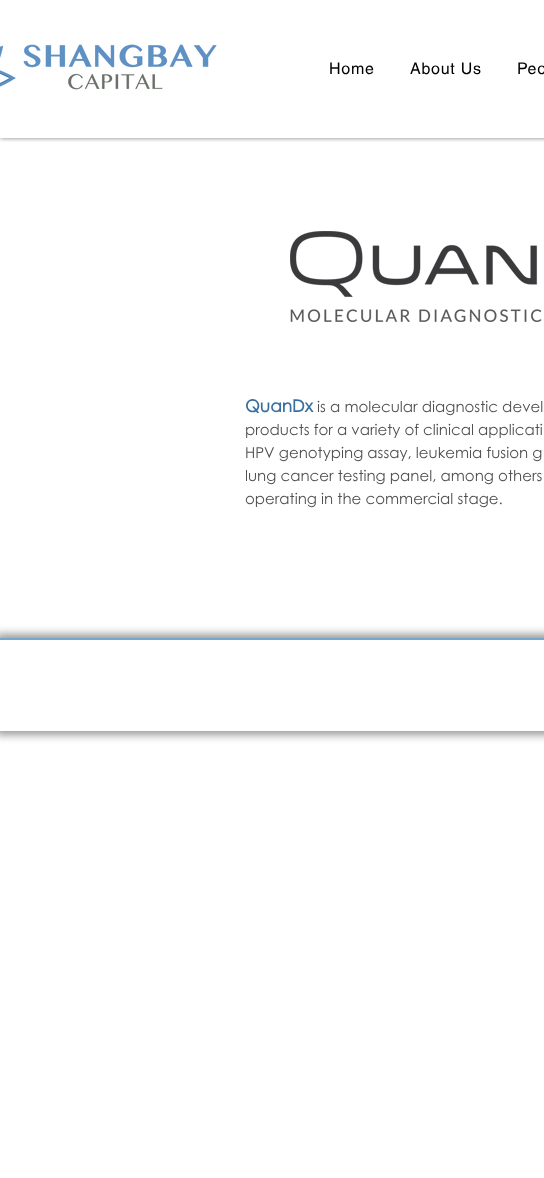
<?xml version="1.0" encoding="UTF-8"?>
<svg xmlns="http://www.w3.org/2000/svg" width="544" height="1178">
    <defs>
        <clipPath id="clip1"><rect x="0" y="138" width="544" height="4"/></clipPath>
        <filter id="blur1" x="-50%" y="-200%" width="200%" height="500%"><feGaussianBlur stdDeviation="2.5"/></filter>
        <clipPath id="clip2"><path d="M 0 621 H 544 V 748 H 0 Z M 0 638 H 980 V 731 H 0 Z" clip-rule="evenodd"/></clipPath>
        <filter id="blur2" x="-50%" y="-200%" width="200%" height="500%"><feGaussianBlur stdDeviation="4"/></filter>
    </defs>
    <rect width="100%" height="100%" fill="#FFFFFF"/>
    <g clip-path="url(#clip1)">
        <rect x="0" y="0" width="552" height="138" fill="#000000" fill-opacity="0.5" filter="url(#blur1)"/>
    </g>
    <image x="0" y="44" width="217" height="46" href="img_01.png"/>
    <text x="329" y="74" font-family="helvetica" font-size="16" letter-spacing="0.75" fill="#000000">Home</text>
    <text x="410" y="74" font-family="helvetica" font-size="16" letter-spacing="0.75" fill="#000000">About Us</text>
    <text x="517" y="74" font-family="helvetica" font-size="16" letter-spacing="0.75" fill="#000000">Peo</text>
    <image x="290" y="231" width="252" height="91" href="img_02.png"/>
    <text x="245" y="412" font-family="Century Gothic" font-size="17" font-weight="700" fill="#386F9E">QuanDx</text>
    <text x="317" y="412" font-family="Century Gothic" font-size="15" fill="#505050">is a molecular diagnostic devel</text>
    <text font-family="Century Gothic" font-size="15" fill="#505050">
        <tspan x="245" y="435">products for a variety of clinical applicati</tspan>
        <tspan x="245" y="458">HPV genotyping assay, leukemia fusion g</tspan>
        <tspan x="245" y="481">lung cancer testing panel, among others</tspan>
        <tspan x="245" y="504">operating in the commercial stage.</tspan>
    </text>
    <g clip-path="url(#clip2)">
        <rect x="-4" y="634" width="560" height="101" fill="#000000" fill-opacity="0.4" filter="url(#blur2)"/>
    </g>
    <rect x="0" y="638" width="544" height="2" fill="#78A8C9"/>
</svg>
